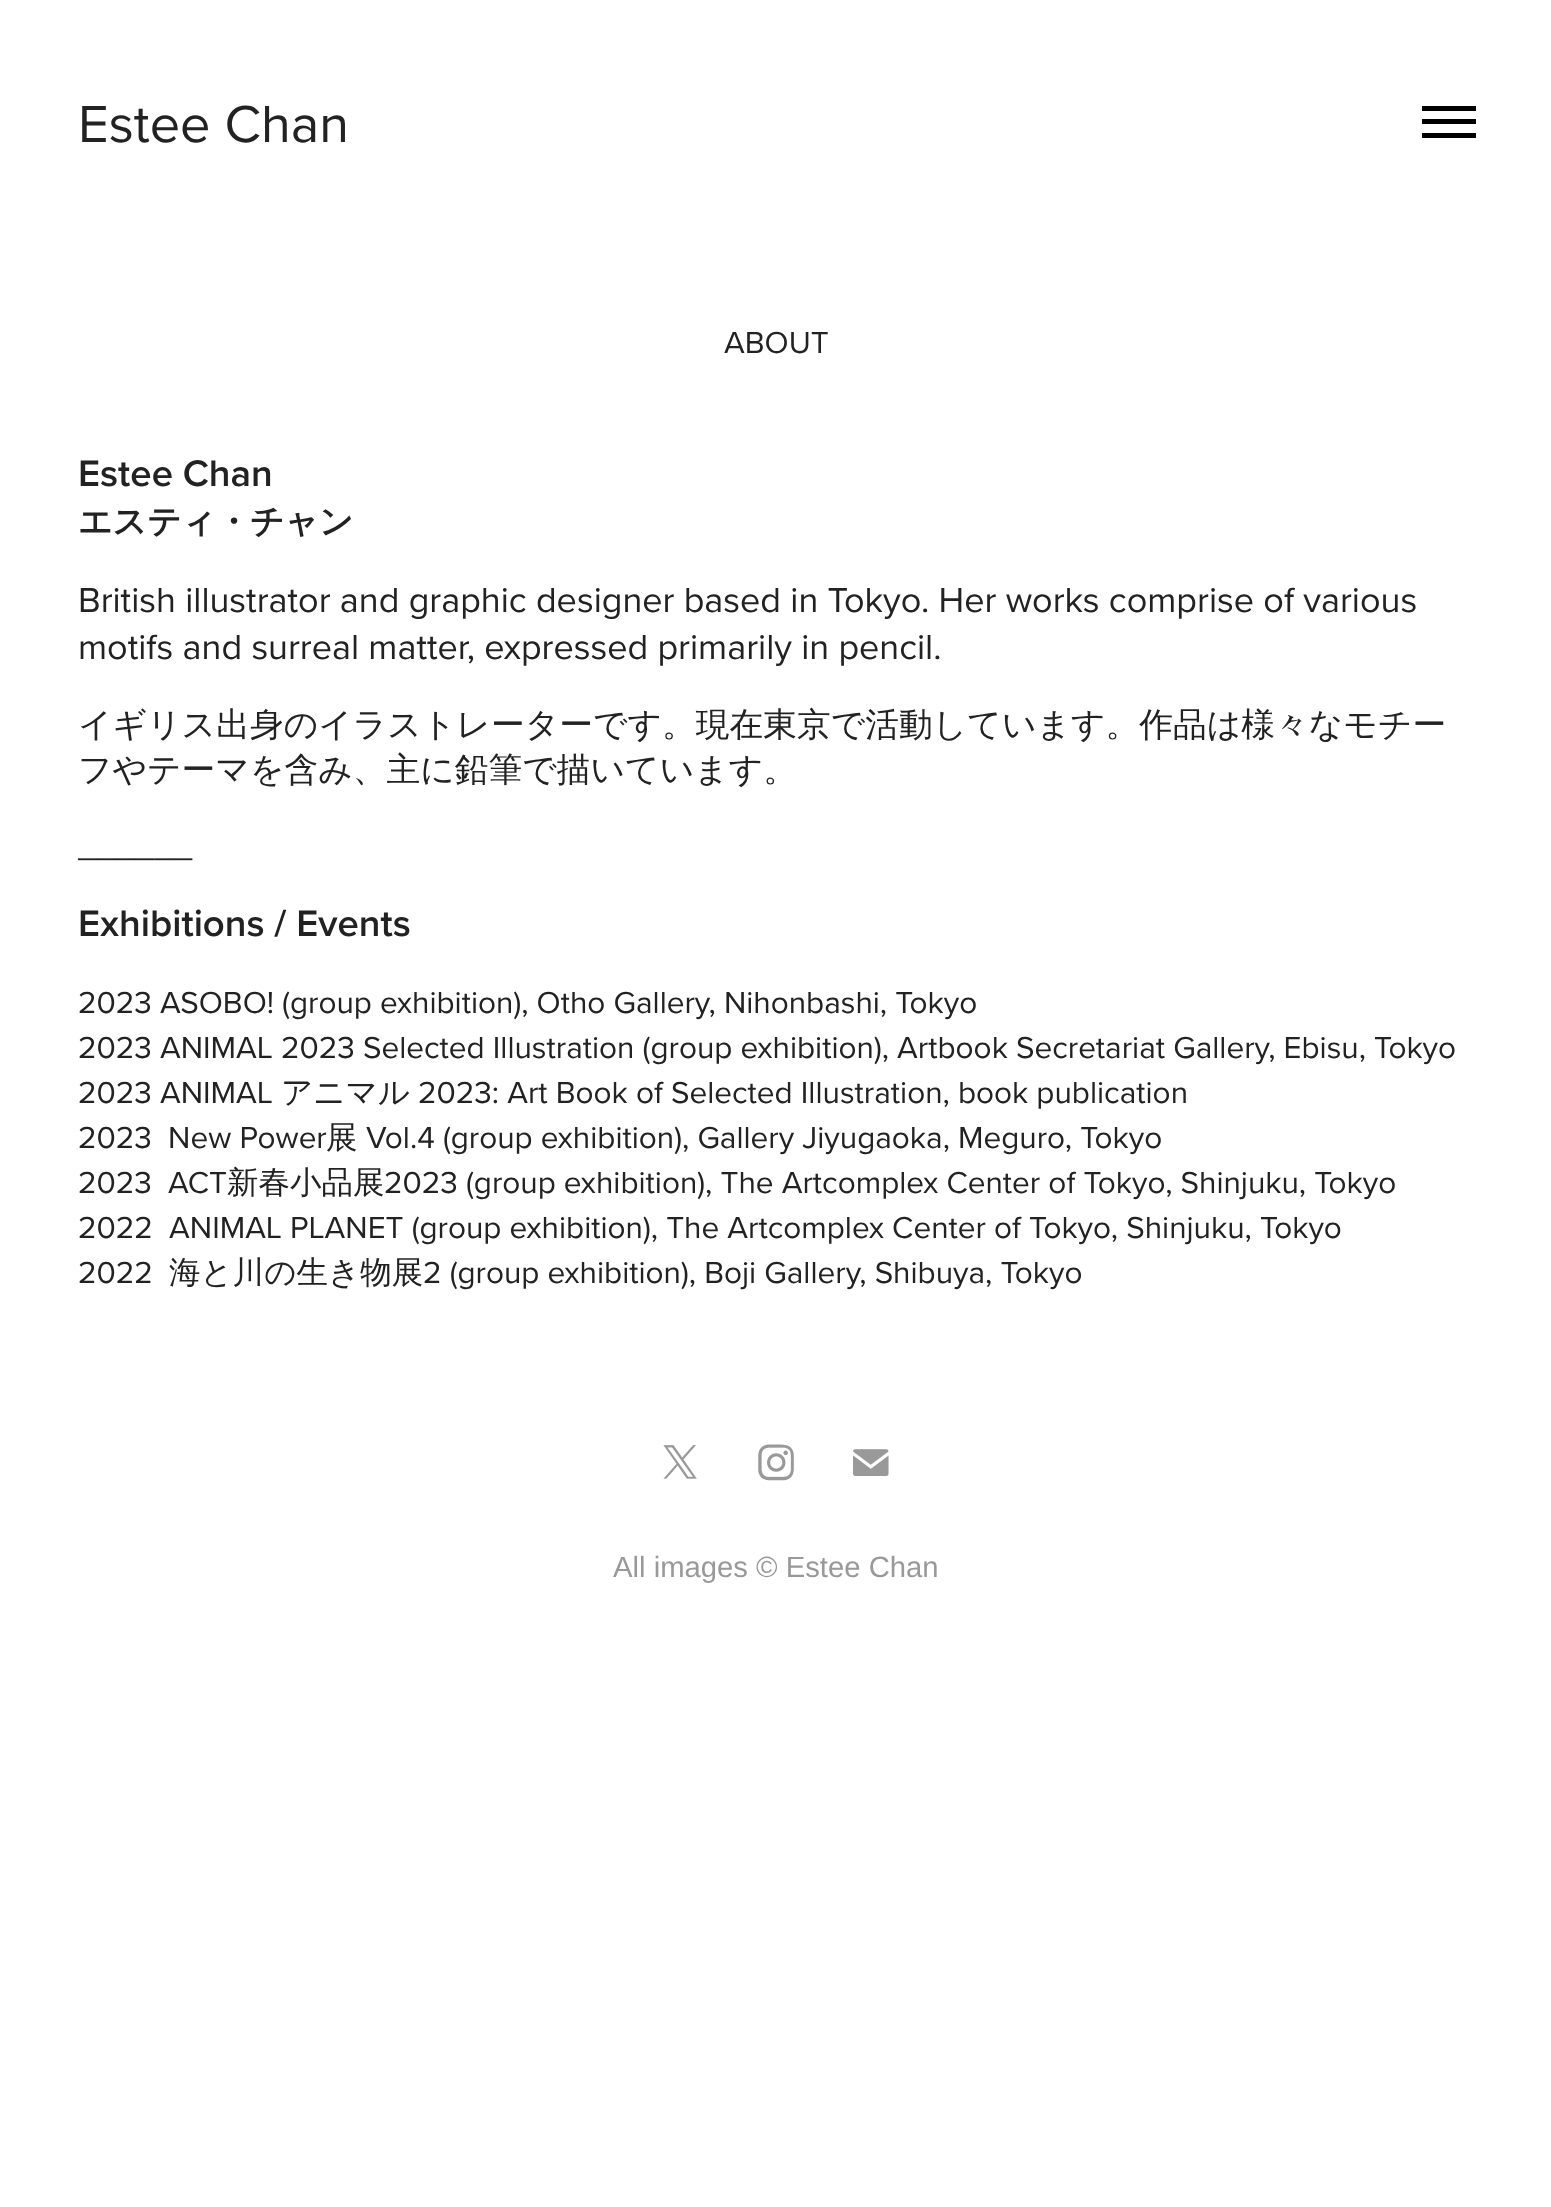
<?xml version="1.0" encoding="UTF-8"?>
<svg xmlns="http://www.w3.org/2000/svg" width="1551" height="2207">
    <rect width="100%" height="100%" fill="#FFFFFF"/>
    <text x="78" y="142" font-family="Proxima Nova" font-size="54" fill="#222222">Estee Chan</text>
    <rect x="1422" y="106" width="54" height="5" fill="#000000"/>
    <rect x="1422" y="119" width="54" height="5" fill="#000000"/>
    <rect x="1422" y="133" width="54" height="5" fill="#000000"/>
    <text x="724" y="353" font-family="Proxima Nova" font-size="31.5" fill="#222222">ABOUT</text>
    <text x="78" y="486" font-family="Proxima Nova" font-size="38.25" font-weight="600" fill="#222222">Estee Chan</text>
    <text x="78" y="533" font-family="WenQuanYi Zen Hei" font-size="33.75" font-weight="700" fill="#222222">エスティ・チャン</text>
    <text font-family="Proxima Nova" font-size="36" fill="#222222">
        <tspan x="78" y="612">British illustrator and graphic designer based in Tokyo. Her works comprise of various</tspan>
        <tspan x="78" y="659">motifs and surreal matter, expressed primarily in pencil.</tspan>
    </text>
    <text font-family="WenQuanYi Zen Hei" font-size="33.75" font-weight="500" fill="#222222">
        <tspan x="78" y="736">イギリス出身のイラストレーターです。現在東京で活動しています。作品は様々なモチー</tspan>
        <tspan x="78" y="781">フやテーマを含み、主に鉛筆で描いています。</tspan>
    </text>
    <text x="78" y="857" font-family="Proxima Nova" font-size="33.75" fill="#222222">______</text>
    <text x="78" y="936" font-family="Proxima Nova" font-size="38.25" font-weight="600" fill="#222222">Exhibitions / Events</text>
    <text font-family="Proxima Nova" font-size="31.5" fill="#222222">
        <tspan x="78" y="1013">2023 ASOBO! (group exhibition), Otho Gallery, Nihonbashi, Tokyo</tspan>
        <tspan x="78" y="1058">2023 ANIMAL 2023 Selected Illustration (group exhibition), Artbook Secretariat Gallery, Ebisu, Tokyo</tspan>
        <tspan x="78" y="1103">2023 ANIMAL</tspan>
    </text>
    <text x="281" y="1103" font-family="WenQuanYi Zen Hei" font-size="31.5" font-weight="500" fill="#222222">アニマル</text>
    <text x="418" y="1103" font-family="Proxima Nova" font-size="31.5" fill="#222222">2023: Art Book of Selected Illustration, book publication</text>
    <text x="78" y="1148" font-family="Proxima Nova" font-size="31.5" fill="#222222" xml:space="preserve">2023  New Power</text>
    <text x="326" y="1148" font-family="WenQuanYi Zen Hei" font-size="31.5" font-weight="500" fill="#222222">展</text>
    <text x="366" y="1148" font-family="Proxima Nova" font-size="31.5" fill="#222222">Vol.4 (group exhibition), Gallery Jiyugaoka, Meguro, Tokyo</text>
    <text x="78" y="1193" font-family="Proxima Nova" font-size="31.5" fill="#222222" xml:space="preserve">2023  ACT</text>
    <text x="227" y="1193" font-family="WenQuanYi Zen Hei" font-size="31.5" font-weight="500" fill="#222222">新春小品展</text>
    <text x="384" y="1193" font-family="Proxima Nova" font-size="31.5" fill="#222222">2023 (group exhibition), The Artcomplex Center of Tokyo, Shinjuku, Tokyo</text>
    <text font-family="Proxima Nova" font-size="31.5" fill="#222222" xml:space="preserve"><tspan x="78" y="1238">2022  ANIMAL PLANET (group exhibition), The Artcomplex Center of Tokyo, Shinjuku, Tokyo</tspan><tspan x="78" y="1283">2022</tspan></text>
    <text x="169" y="1283" font-family="WenQuanYi Zen Hei" font-size="31.5" font-weight="500" fill="#222222">海と川の生き物展</text>
    <text x="423" y="1283" font-family="Proxima Nova" font-size="31.5" fill="#222222">2 (group exhibition), Boji Gallery, Shibuya, Tokyo</text>
    <image x="663" y="1445" width="34" height="34" href="img_01.png"/>
    <image x="758" y="1444" width="36" height="37" href="img_02.png"/>
    <image x="853" y="1449" width="36" height="27" href="img_03.png"/>
    <text x="613" y="1577" font-family="Liberation Sans" font-size="29.25" fill="#999999">All images © Estee Chan</text>
</svg>
